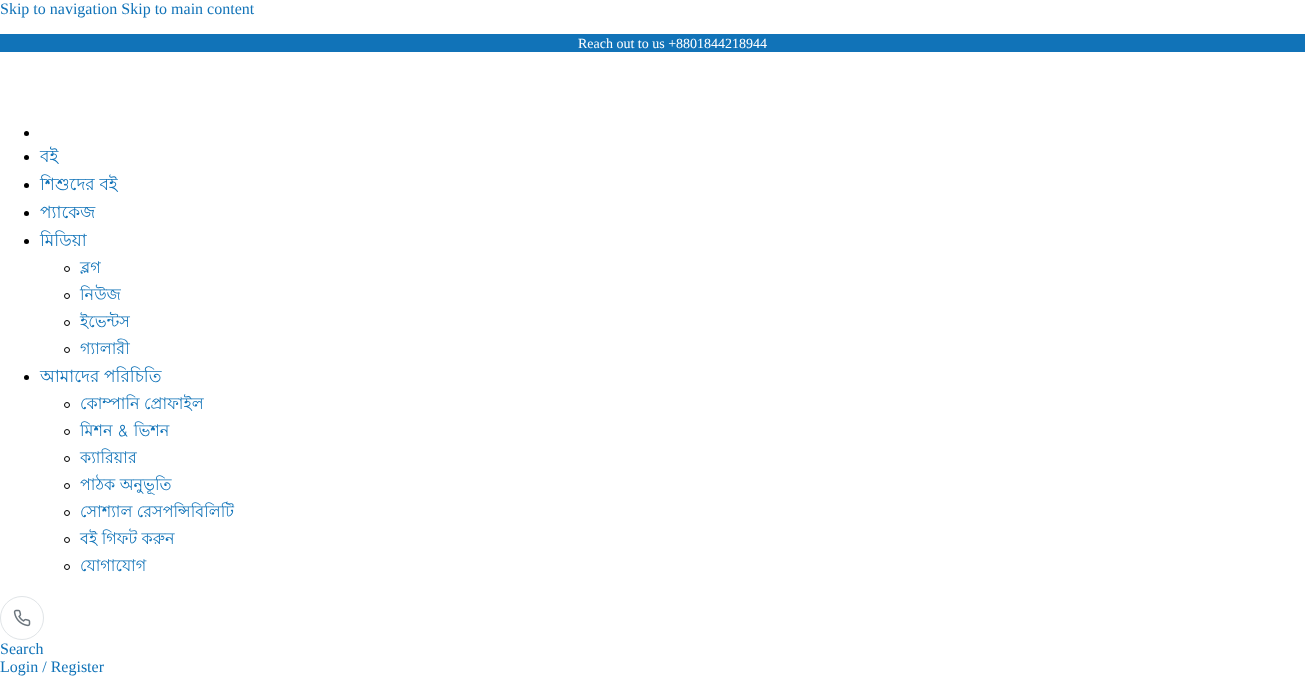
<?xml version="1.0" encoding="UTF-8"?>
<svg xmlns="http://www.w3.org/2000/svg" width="1305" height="677">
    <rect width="100%" height="100%" fill="#FFFFFF"/>
    <text x="0" y="14" font-family="Liberation Serif" font-size="16" fill="#1173B8">Skip to navigation Skip to main content</text>
    <rect x="0" y="34" width="1305" height="18" fill="#1173B8"/>
    <text x="578" y="48" font-family="Liberation Serif" font-size="14" fill="#FFFFFF">Reach out to us +8801844218944</text>
    <circle cx="26.5" cy="133.5" r="2.5" fill="#000000"/>
    <circle cx="26.5" cy="157.5" r="2.5" fill="#000000"/>
    <text x="40" y="162" font-family="Lohit Bengali" font-size="17" fill="#1173B8">বই</text>
    <circle cx="26.5" cy="185.5" r="2.5" fill="#000000"/>
    <text x="40" y="190" font-family="Lohit Bengali" font-size="17" fill="#1173B8">শিশুদের বই</text>
    <circle cx="26.5" cy="213.5" r="2.5" fill="#000000"/>
    <text x="40" y="218" font-family="Lohit Bengali" font-size="17" fill="#1173B8">প্যাকেজ</text>
    <circle cx="26.5" cy="241.5" r="2.5" fill="#000000"/>
    <text x="40" y="246" font-family="Lohit Bengali" font-size="17" fill="#1173B8">মিডিয়া</text>
    <circle cx="67" cy="269" r="2.5" fill="none" stroke="#000000"/>
    <text x="80" y="273" font-family="Lohit Bengali" font-size="16" fill="#1173B8">ব্লগ</text>
    <circle cx="67" cy="296" r="2.5" fill="none" stroke="#000000"/>
    <text x="80" y="300" font-family="Lohit Bengali" font-size="16" fill="#1173B8">নিউজ</text>
    <circle cx="67" cy="323" r="2.5" fill="none" stroke="#000000"/>
    <text x="80" y="327" font-family="Lohit Bengali" font-size="16" fill="#1173B8">ইভেন্টস</text>
    <circle cx="67" cy="350" r="2.5" fill="none" stroke="#000000"/>
    <text x="80" y="354" font-family="Lohit Bengali" font-size="16" fill="#1173B8">গ্যালারী</text>
    <circle cx="26.5" cy="377.5" r="2.5" fill="#000000"/>
    <text x="40" y="382" font-family="Lohit Bengali" font-size="17" fill="#1173B8">আমাদের পরিচিতি</text>
    <circle cx="67" cy="405" r="2.5" fill="none" stroke="#000000"/>
    <text x="80" y="409" font-family="Lohit Bengali" font-size="16" fill="#1173B8">কোম্পানি প্রোফাইল</text>
    <circle cx="67" cy="432" r="2.5" fill="none" stroke="#000000"/>
    <text x="80" y="436" font-family="Lohit Bengali" font-size="16" fill="#1173B8">মিশন &amp; ভিশন</text>
    <circle cx="67" cy="459" r="2.5" fill="none" stroke="#000000"/>
    <text x="80" y="463" font-family="Lohit Bengali" font-size="16" fill="#1173B8">ক্যারিয়ার</text>
    <circle cx="67" cy="486" r="2.5" fill="none" stroke="#000000"/>
    <text x="80" y="490" font-family="Lohit Bengali" font-size="16" fill="#1173B8">পাঠক অনুভূতি</text>
    <circle cx="67" cy="513" r="2.5" fill="none" stroke="#000000"/>
    <text x="80" y="517" font-family="Lohit Bengali" font-size="16" fill="#1173B8">সোশ্যাল রেসপন্সিবিলিটি</text>
    <circle cx="67" cy="540" r="2.5" fill="none" stroke="#000000"/>
    <text x="80" y="544" font-family="Lohit Bengali" font-size="16" fill="#1173B8">বই গিফট করুন</text>
    <circle cx="67" cy="567" r="2.5" fill="none" stroke="#000000"/>
    <text x="80" y="571" font-family="Lohit Bengali" font-size="16" fill="#1173B8">যোগাযোগ</text>
    <circle cx="22" cy="618" r="21.5" fill="none" stroke="#E0E4E7"/>
    <image x="13" y="609" width="18" height="18" href="img_01.png"/>
    <text font-family="Liberation Serif" font-size="16" fill="#1173B8">
        <tspan x="0" y="654">Search</tspan>
        <tspan x="0" y="672">Login / Register</tspan>
    </text>
</svg>
